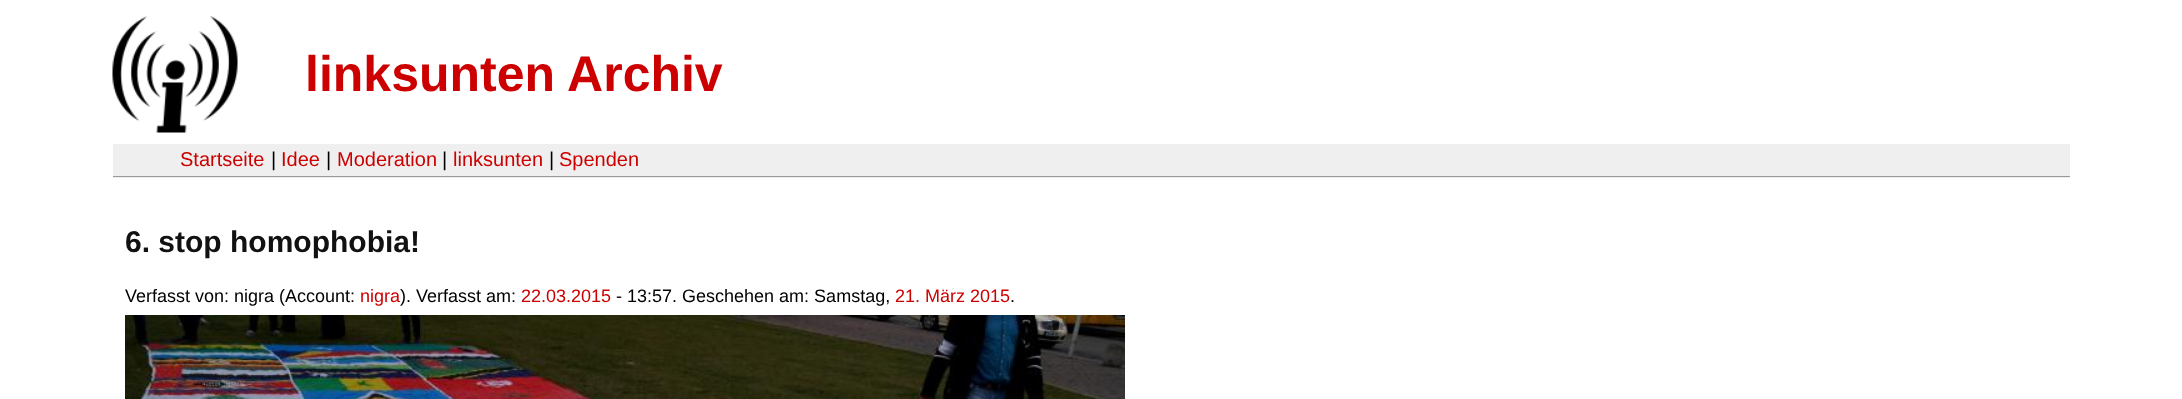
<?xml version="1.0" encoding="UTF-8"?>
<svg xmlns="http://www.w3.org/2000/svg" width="2182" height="399">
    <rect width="100%" height="100%" fill="#FFFFFF"/>
    <image x="112" y="16" width="126" height="117" href="img_01.png"/>
    <text x="305" y="91" font-family="Liberation Sans" font-size="50" font-weight="700" fill="#CC0000">linksunten Archiv</text>
    <rect x="113" y="144" width="1957" height="34" fill="#EFEFEF"/>
    <rect x="113" y="176" width="1957" height="1" fill="#999999"/>
    <text x="180" y="166" font-family="Liberation Sans" font-size="20" fill="#CC0000">Startseite</text>
    <text x="271" y="166" font-family="Liberation Sans" font-size="20" fill="#000000">|</text>
    <text x="281" y="166" font-family="Liberation Sans" font-size="20" fill="#CC0000">Idee</text>
    <text x="326" y="166" font-family="Liberation Sans" font-size="20" fill="#000000">|</text>
    <text x="337" y="166" font-family="Liberation Sans" font-size="20" fill="#CC0000">Moderation</text>
    <text x="442" y="166" font-family="Liberation Sans" font-size="20" fill="#000000">|</text>
    <text x="453" y="166" font-family="Liberation Sans" font-size="20" fill="#CC0000">linksunten</text>
    <text x="549" y="166" font-family="Liberation Sans" font-size="20" fill="#000000">|</text>
    <text x="559" y="166" font-family="Liberation Sans" font-size="20" fill="#CC0000">Spenden</text>
    <text x="125" y="252" font-family="Liberation Sans" font-size="30" font-weight="700" fill="#111111">6. stop homophobia!</text>
    <text x="125" y="302" font-family="Liberation Sans" font-size="18" fill="#000000">Verfasst von: nigra (Account:</text>
    <text x="360" y="302" font-family="Liberation Sans" font-size="18" fill="#CC0000">nigra</text>
    <text x="400" y="302" font-family="Liberation Sans" font-size="18" fill="#000000">). Verfasst am:</text>
    <text x="521" y="302" font-family="Liberation Sans" font-size="18" fill="#CC0000">22.03.2015</text>
    <text x="616" y="302" font-family="Liberation Sans" font-size="18" fill="#000000">- 13:57. Geschehen am: Samstag,</text>
    <text x="895" y="302" font-family="Liberation Sans" font-size="18" fill="#CC0000">21. März 2015</text>
    <text x="1010" y="302" font-family="Liberation Sans" font-size="18" fill="#000000">.</text>
    <image x="125" y="315" width="1000" height="84" href="img_02.png"/>
</svg>
